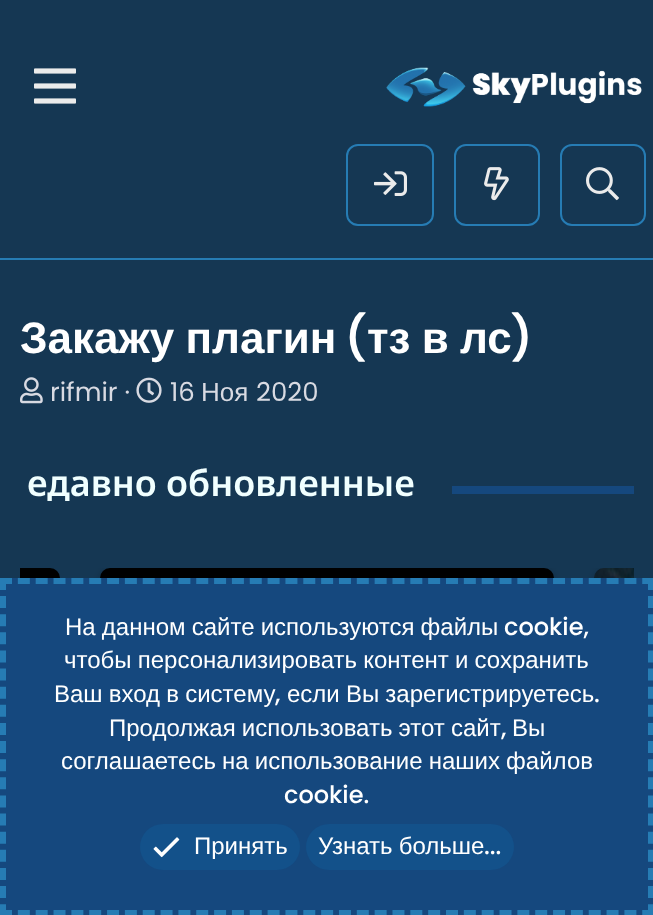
<?xml version="1.0" encoding="UTF-8"?>
<svg xmlns="http://www.w3.org/2000/svg" width="653" height="915">
    <defs>
        <clipPath id="clip1"><rect x="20" y="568" width="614" height="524"/></clipPath>
        <filter id="blur1" x="-50%" y="-200%" width="200%" height="500%"><feGaussianBlur stdDeviation="4"/></filter>
    </defs>
    <rect width="100%" height="100%" fill="#153753"/>
    <rect x="0" y="258" width="653" height="2" fill="#267CB4"/>
    <image x="34" y="68" width="42" height="36" href="img_01.png"/>
    <image x="386" y="67" width="256" height="40" href="img_02.png"/>
    <rect x="347" y="145" width="86" height="80" rx="11" fill="none" stroke="#267CB4" stroke-width="2"/>
    <image x="374" y="171" width="33" height="25" href="img_03.png"/>
    <rect x="455" y="145" width="84" height="80" rx="11" fill="none" stroke="#267CB4" stroke-width="2"/>
    <image x="484" y="167" width="25" height="34" href="img_04.png"/>
    <rect x="561" y="145" width="84" height="80" rx="11" fill="none" stroke="#267CB4" stroke-width="2"/>
    <image x="586" y="167" width="33" height="34" href="img_05.png"/>
    <text x="20" y="353" word-spacing="-1" font-family="Liberation Sans" font-size="44" font-weight="700" fill="#FFFFFF">Закажу плагин</text>
    <text x="345" y="353" font-family="Poppins" font-size="44" font-weight="600" fill="#FFFFFF">(</text>
    <text x="367" y="353" word-spacing="-1" font-family="Liberation Sans" font-size="44" font-weight="700" fill="#FFFFFF">тз в лс</text>
    <text x="511" y="353" font-family="Poppins" font-size="44" font-weight="600" fill="#FFFFFF">)</text>
    <image x="20" y="377" width="23" height="27" href="img_06.png"/>
    <text x="50" y="401" font-family="Poppins" font-size="26" fill="#D8DAE2">rifmir ·</text>
    <image x="136" y="377" width="26" height="26" href="img_07.png"/>
    <text x="170" y="401" font-family="Poppins" font-size="26" fill="#D8DAE2">16</text>
    <text x="201" y="401" font-family="Liberation Sans" font-size="26" fill="#D8DAE2">Ноя</text>
    <text x="256" y="401" font-family="Poppins" font-size="26" fill="#D8DAE2">2020</text>
    <text x="27" y="496" font-family="Noto Sans" font-size="36" font-weight="600" fill="#F0FFFF">едавно обновленные</text>
    <rect x="452" y="486" width="182" height="8" fill="#15487E"/>
    <image x="20" y="568" width="40" height="10" href="img_08.png"/>
    <g clip-path="url(#clip1)">
        <rect x="100" y="570" width="454" height="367" rx="10" fill="#000000" fill-opacity="0.21" filter="url(#blur1)"/>
    </g>
    <image x="100" y="568" width="454" height="10" href="img_09.png"/>
    <g clip-path="url(#clip1)">
        <rect x="594" y="570" width="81" height="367" rx="10" fill="#000000" fill-opacity="0.21" filter="url(#blur1)"/>
    </g>
    <image x="594" y="568" width="40" height="10" href="img_10.png"/>
    <rect x="0" y="578" width="653" height="337" fill="#15487E"/>
    <path d="M 0 581 H 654" fill="none" stroke="#267CB4" stroke-width="6" stroke-dasharray="12 5.84"/>
    <path d="M 651 578 V 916" fill="none" stroke="#267CB4" stroke-width="6" stroke-dasharray="12 6.12"/>
    <path d="M 0 913 H 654" fill="none" stroke="#267CB4" stroke-width="6" stroke-dasharray="12 5.84"/>
    <path d="M 3 578 V 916" fill="none" stroke="#267CB4" stroke-width="6" stroke-dasharray="12 6.12"/>
    <text x="65" y="635" word-spacing="-0.5" font-family="Liberation Sans" font-size="24" fill="#FFFFFF">На данном сайте используются файлы</text>
    <text x="504" y="635" font-family="Poppins" font-size="24" font-weight="500" fill="#FFFFFF">cookie,</text>
    <text x="64" y="668" word-spacing="-0.5" font-family="Liberation Sans" font-size="24" fill="#FFFFFF">чтобы персонализировать контент и сохранить</text>
    <text x="54" y="702" word-spacing="-0.5" font-family="Liberation Sans" font-size="24" fill="#FFFFFF">Ваш вход в систему</text>
    <text x="275" y="702" font-family="Poppins" font-size="24" font-weight="500" fill="#FFFFFF">,</text>
    <text x="287" y="702" word-spacing="-0.5" font-family="Liberation Sans" font-size="24" fill="#FFFFFF">если Вы зарегистрируетесь</text>
    <text x="594" y="702" font-family="Poppins" font-size="24" font-weight="500" fill="#FFFFFF">.</text>
    <text x="109" y="736" word-spacing="-0.5" font-family="Liberation Sans" font-size="24" fill="#FFFFFF">Продолжая использовать этот сайт</text>
    <text x="501" y="736" font-family="Poppins" font-size="24" font-weight="500" fill="#FFFFFF">,</text>
    <text x="512" y="736" font-family="Liberation Sans" font-size="24" fill="#FFFFFF">Вы</text>
    <text x="61" y="769" word-spacing="-0.5" font-family="Liberation Sans" font-size="24" fill="#FFFFFF">соглашаетесь на использование наших файлов</text>
    <text x="284" y="803" font-family="Poppins" font-size="24" font-weight="500" fill="#FFFFFF">cookie.</text>
    <rect x="140" y="824" width="160" height="46" rx="23" fill="#13518A"/>
    <image x="153" y="837" width="27" height="21" href="img_11.png"/>
    <text x="194" y="854" font-family="Liberation Sans" font-size="24" fill="#FFFFFF">Принять</text>
    <rect x="306" y="824" width="208" height="46" rx="23" fill="#13518A"/>
    <text x="318" y="854" word-spacing="-0.5" font-family="Liberation Sans" font-size="24" fill="#FFFFFF">Узнать больше</text>
    <text x="484" y="854" font-family="Poppins" font-size="24" font-weight="500" fill="#FFFFFF">...</text>
</svg>
